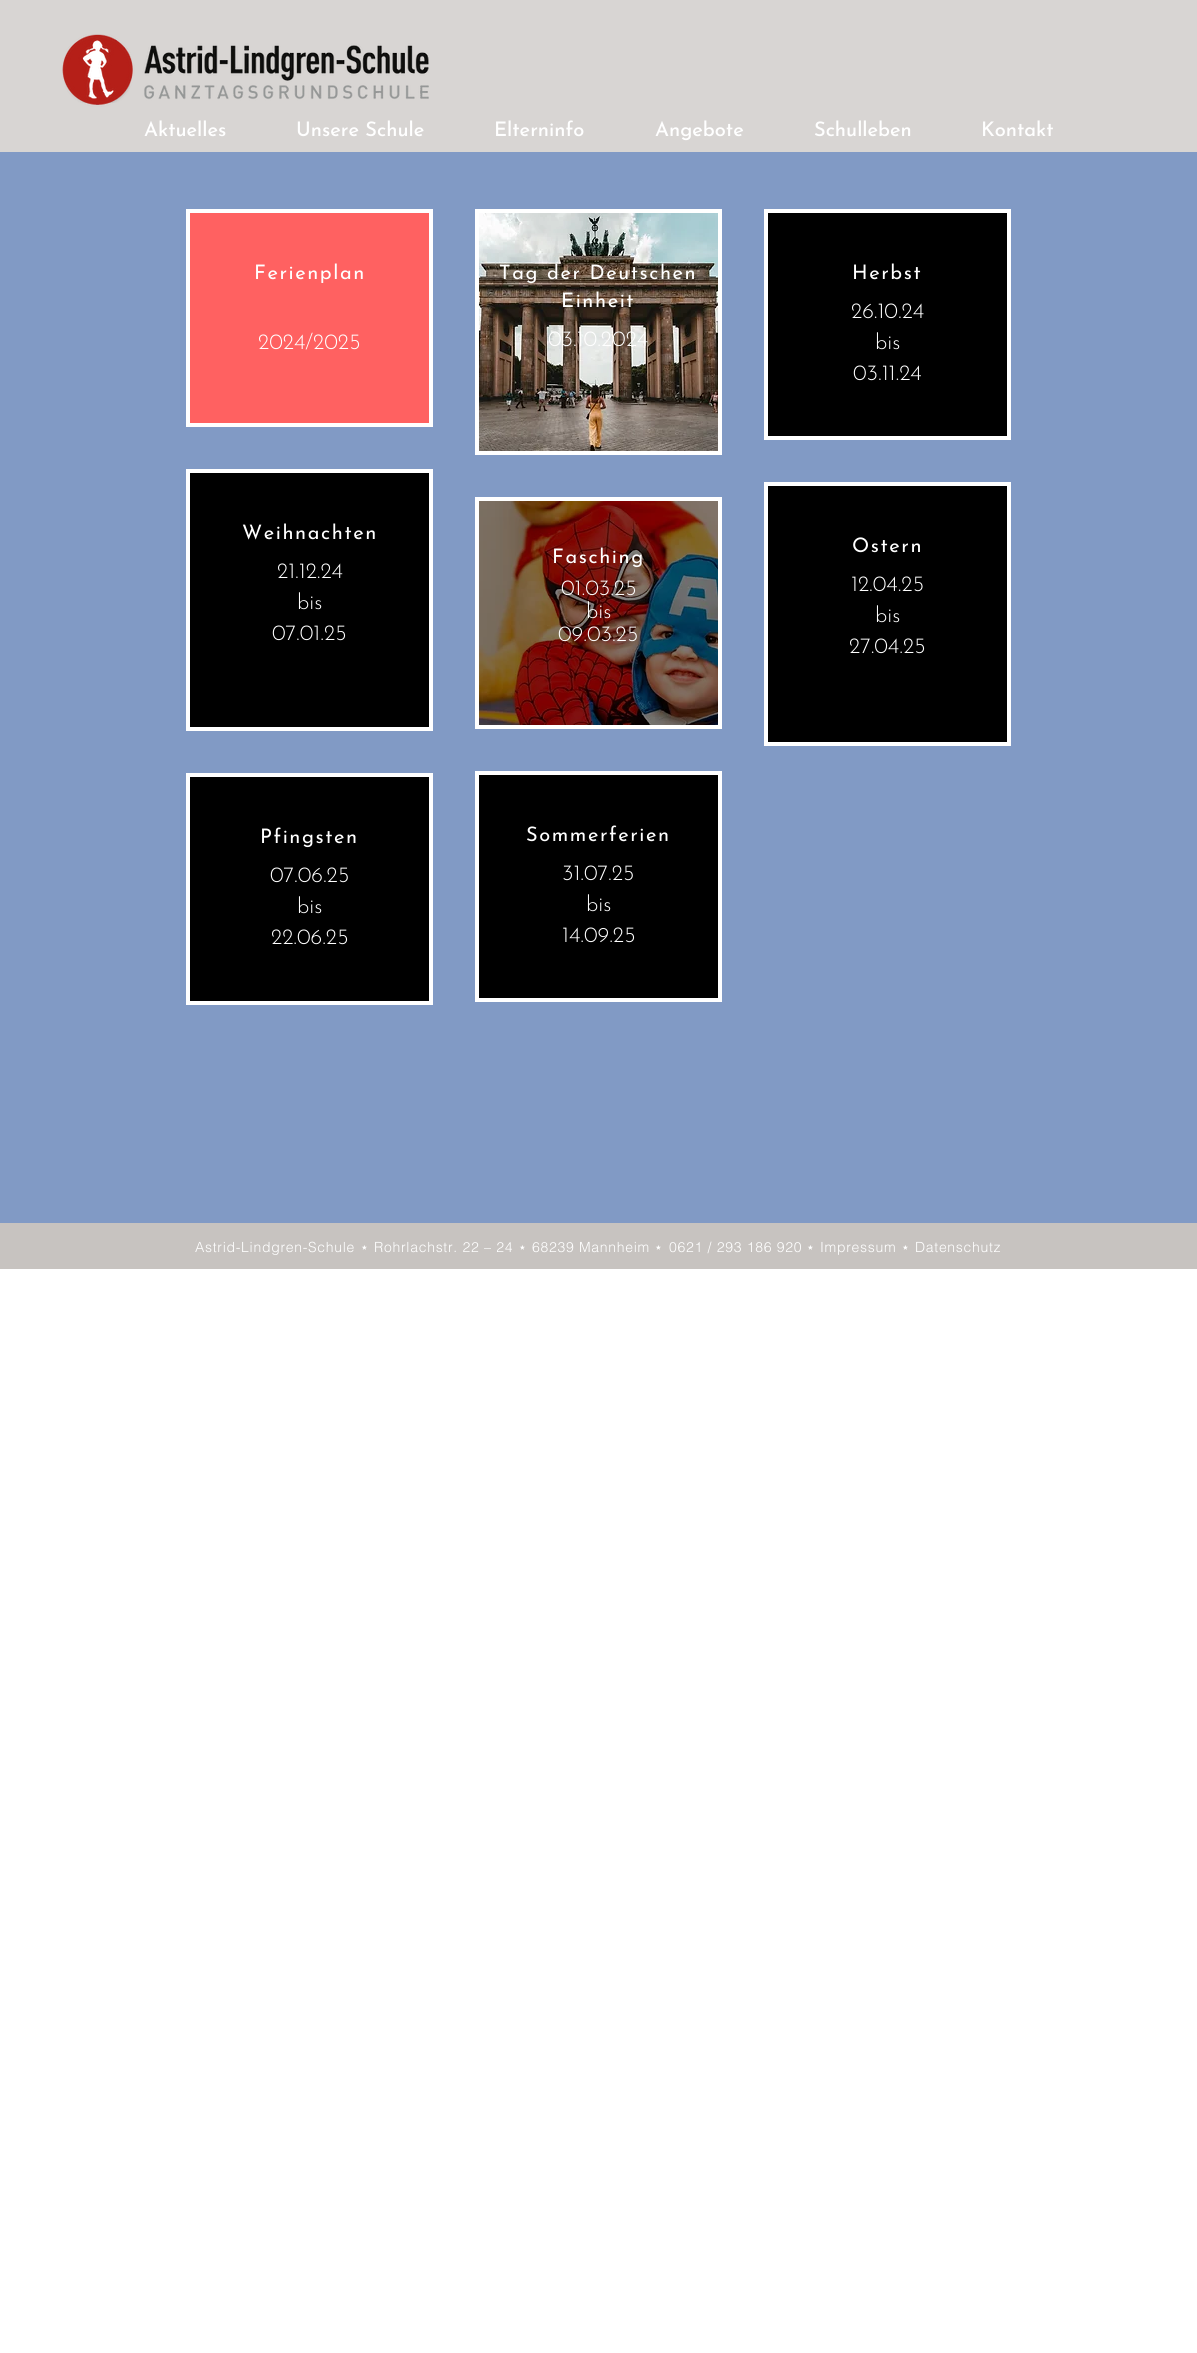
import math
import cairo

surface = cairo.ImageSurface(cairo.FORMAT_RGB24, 1197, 2353)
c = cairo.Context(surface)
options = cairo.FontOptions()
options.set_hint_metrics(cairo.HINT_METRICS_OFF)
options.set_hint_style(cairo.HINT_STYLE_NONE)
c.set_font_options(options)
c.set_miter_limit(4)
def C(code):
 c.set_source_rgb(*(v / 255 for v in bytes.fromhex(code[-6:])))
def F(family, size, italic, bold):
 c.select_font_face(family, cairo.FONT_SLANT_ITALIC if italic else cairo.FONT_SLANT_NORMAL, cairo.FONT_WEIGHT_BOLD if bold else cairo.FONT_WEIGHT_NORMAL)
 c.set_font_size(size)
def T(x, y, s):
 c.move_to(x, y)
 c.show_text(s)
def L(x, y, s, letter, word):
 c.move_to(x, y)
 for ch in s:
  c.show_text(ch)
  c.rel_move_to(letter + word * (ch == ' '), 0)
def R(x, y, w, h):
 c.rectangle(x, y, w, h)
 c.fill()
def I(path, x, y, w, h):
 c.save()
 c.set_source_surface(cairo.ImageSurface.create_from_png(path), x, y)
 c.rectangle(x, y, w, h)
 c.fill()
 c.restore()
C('ffffff')
c.paint()
C('d8d5d3')
R(0,0,1197,152)
I('2.png',64,38,66,65)
I('1.png',62,34,367,73)
F('Josefin Sans Medium',20,0,0)
C('ffffff')
T(144,136,'Aktuelles')
T(296,136,'Unsere Schule')
T(494,136,'Elterninfo')
T(655,136,'Angebote')
T(814,136,'Schulleben')
T(981,136,'Kontakt')
C('819ac5')
R(0,152,1197,1071)
c.rectangle(188,211,243,214)
C('ffffff')
c.set_line_width(4)
c.stroke()
C('ff6161')
R(190,213,239,210)
F('Josefin Sans',20,0,0)
C('ffffff')
L(254,279,'Ferienplan',1.6,0)
F('Josefin Sans Thin',22,0,0)
T(258,349,'2024/2025')
c.rectangle(188,471,243,258)
c.stroke()
C('000000')
R(190,473,239,254)
F('Josefin Sans',20,0,0)
C('ffffff')
L(242,539,'Weihnachten',1.6,0)
F('Josefin Sans Thin',22,0,0)
T(277,578,'21.12.24')
T(297,609,'bis')
T(272,640,'07.01.25')
c.rectangle(188,775,243,228)
c.stroke()
C('000000')
R(190,777,239,224)
F('Josefin Sans',20,0,0)
C('ffffff')
L(260,843,'Pfingsten',1.6,0)
F('Josefin Sans Thin',22,0,0)
T(270,882,'07.06.25')
T(297,913,'bis')
T(271,944,'22.06.25')
c.rectangle(477,211,243,242)
c.stroke()
I('3.png',479,213,239,238)
F('Josefin Sans',20,0,0)
L(499,279,'Tag der Deutschen',1.6,0)
L(561,307,'Einheit',1.6,0)
F('Josefin Sans Thin',22,0,0)
T(548,346,'03.10.2024')
c.rectangle(477,499,243,228)
c.stroke()
C('000000')
R(479,501,239,224)
I('4.png',479,501,239,224)
F('Josefin Sans',20,0,0)
C('ffffff')
L(552,563,'Fasching',1.6,0)
F('Josefin Sans Thin',22,0,0)
T(561,595,'01.03.25')
T(586,618,'bis')
T(558,641,'09.03.25')
c.rectangle(477,773,243,227)
c.stroke()
C('000000')
R(479,775,239,223)
F('Josefin Sans',20,0,0)
C('ffffff')
L(526,841,'Sommerferien',1.6,0)
F('Josefin Sans Thin',22,0,0)
T(562,880,'31.07.25')
T(586,911,'bis')
T(562,942,'14.09.25')
c.rectangle(766,211,243,227)
c.stroke()
C('000000')
R(768,213,239,223)
F('Josefin Sans',20,0,0)
C('ffffff')
L(852,279,'Herbst',1.6,0)
F('Josefin Sans Thin',22,0,0)
T(851,318,'26.10.24')
T(875,349,'bis')
T(853,380,'03.11.24')
c.rectangle(766,484,243,260)
c.stroke()
C('000000')
R(768,486,239,256)
F('Josefin Sans',20,0,0)
C('ffffff')
L(852,552,'Ostern',1.6,0)
F('Josefin Sans Thin',22,0,0)
T(851,591,'12.04.25')
T(875,622,'bis')
T(849,653,'27.04.25')
C('c7c3c0')
R(0,1223,1197,46)
F('helvetica Light',14,0,0)
C('ffffff')
L(195,1252,'Astrid-Lindgren-Schule',.7,0)
F('DejaVu Sans',14,0,0)
L(360,1252,'⋆',.7,0)
F('helvetica Light',14,0,0)
L(374,1252,'Rohrlachstr. 22 – 24',.7,0)
F('DejaVu Sans',14,0,0)
L(518,1252,'⋆',.7,0)
F('helvetica Light',14,0,0)
L(532,1252,'68239 Mannheim',.7,0)
F('DejaVu Sans',14,0,0)
L(654,1252,'⋆',.7,0)
F('helvetica Light',14,0,0)
L(669,1252,'0621 / 293 186 920',.7,0)
F('DejaVu Sans',14,0,0)
L(806,1252,'⋆',.7,0)
F('helvetica Light',14,0,0)
L(820,1252,'Impressum',.7,0)
F('DejaVu Sans',14,0,0)
L(901,1252,'⋆',.7,0)
F('helvetica Light',14,0,0)
L(915,1252,'Datenschutz',.7,0)
surface.write_to_png('o.png')
